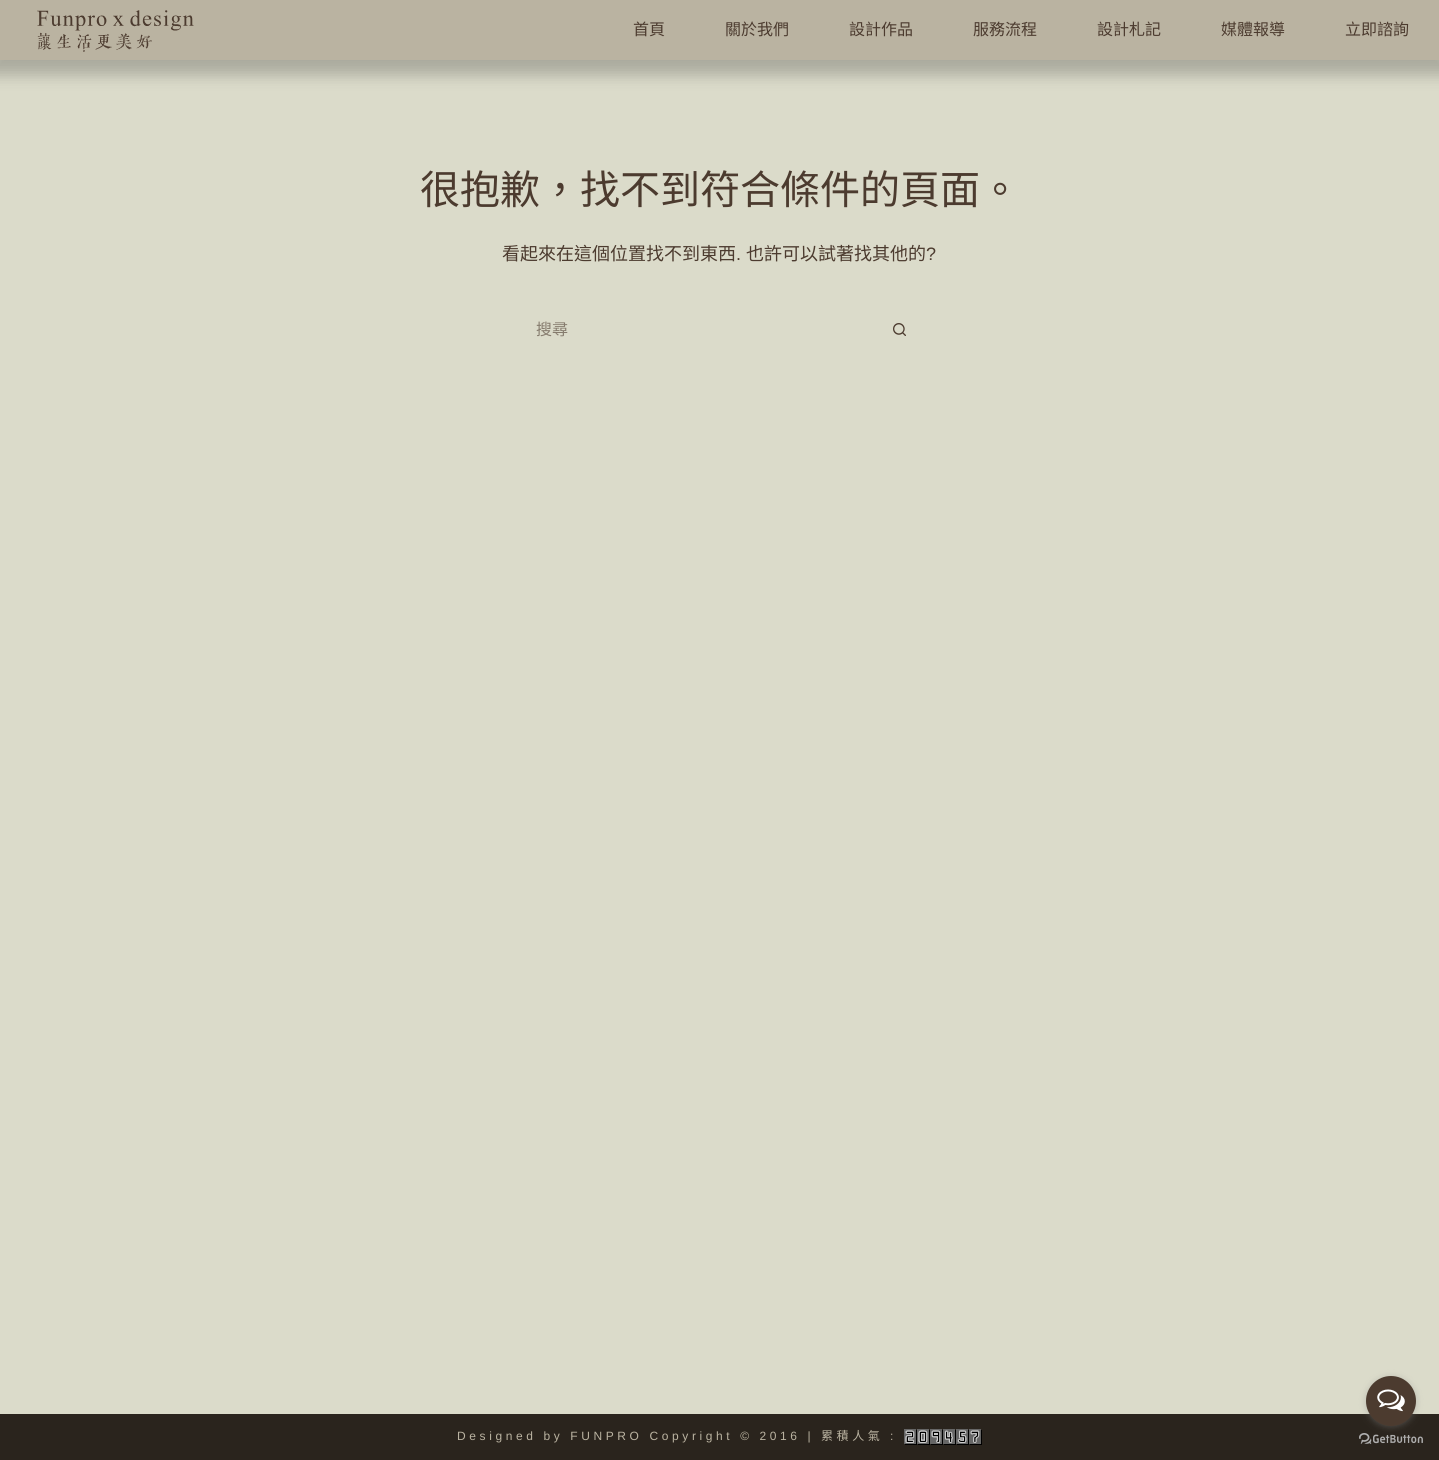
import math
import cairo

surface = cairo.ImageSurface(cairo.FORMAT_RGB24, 1439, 1460)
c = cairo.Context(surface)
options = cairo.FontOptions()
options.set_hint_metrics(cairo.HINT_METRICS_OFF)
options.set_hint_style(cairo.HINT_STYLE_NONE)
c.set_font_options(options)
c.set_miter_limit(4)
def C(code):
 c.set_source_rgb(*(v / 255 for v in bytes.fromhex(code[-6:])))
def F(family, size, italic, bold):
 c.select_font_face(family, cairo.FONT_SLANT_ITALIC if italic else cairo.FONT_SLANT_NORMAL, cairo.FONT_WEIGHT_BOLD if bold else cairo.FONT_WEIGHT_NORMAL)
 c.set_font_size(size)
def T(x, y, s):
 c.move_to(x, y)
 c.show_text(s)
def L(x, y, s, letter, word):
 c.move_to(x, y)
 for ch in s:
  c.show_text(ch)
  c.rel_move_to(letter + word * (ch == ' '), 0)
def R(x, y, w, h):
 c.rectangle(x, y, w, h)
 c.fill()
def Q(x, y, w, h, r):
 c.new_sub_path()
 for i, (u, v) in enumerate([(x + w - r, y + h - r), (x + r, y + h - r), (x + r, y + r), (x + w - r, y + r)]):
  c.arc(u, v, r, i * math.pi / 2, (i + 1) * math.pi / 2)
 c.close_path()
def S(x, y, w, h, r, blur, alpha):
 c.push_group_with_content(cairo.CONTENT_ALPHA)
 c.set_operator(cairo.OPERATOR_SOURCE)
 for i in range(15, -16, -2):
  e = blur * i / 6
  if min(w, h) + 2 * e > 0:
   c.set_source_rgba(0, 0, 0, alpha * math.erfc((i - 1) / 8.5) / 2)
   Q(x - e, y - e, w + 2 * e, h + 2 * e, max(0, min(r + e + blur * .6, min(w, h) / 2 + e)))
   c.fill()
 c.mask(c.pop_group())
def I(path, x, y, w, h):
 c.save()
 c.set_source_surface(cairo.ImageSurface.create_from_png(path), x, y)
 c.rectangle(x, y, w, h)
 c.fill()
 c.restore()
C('dbdbca')
c.paint()
C('212121')
S(-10,-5,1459,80,0,7.5,.26)
C('bab3a1')
R(0,0,1439,60)
I('1.png',37,10,157,42)
F('Noto Sans CJK TC',16,0,0)
C('4c3b2f')
T(633,35,'首頁')
T(725,35,'關於我們')
T(849,35,'設計作品')
T(973,35,'服務流程')
T(1097,35,'設計札記')
T(1221,35,'媒體報導')
T(1345,35,'立即諮詢')
F('Noto Sans CJK TC',40,0,0)
T(420,204,'很抱歉，找不到符合條件的頁面。')
F('Noto Sans CJK TC',18,0,0)
T(502,260,'看起來在這個位置找不到東西')
F('Liberation Sans',18,0,0)
T(736,260,'.')
F('Noto Sans CJK TC',18,0,0)
T(746,260,'也許可以試著找其他的')
F('Liberation Sans',18,0,0)
T(926,260,'?')
F('Noto Sans CJK TC',16,0,0)
C('857b6d')
T(536,335,'搜尋')
I('2.png',893,323,13,13)
C('2a241d')
R(0,1414,1439,46)
F('Liberation Sans',12,0,0)
C('bab3a1')
L(457,1440,'Designed by FUNPRO Copyright © 2016 |',3.6,0)
F('Noto Sans CJK TC',12,0,0)
L(821,1440,'累積人氣',3.6,0)
F('Liberation Sans',12,0,0)
L(890,1440,':',3.6,0)
I('3.png',904,1429,78,16)
I('5.png',1359,1433,64,11)
C('888888')
S(1366,1377,50,50,25,3.5,.4)
C('4c3b2f')
c.arc(1391,1401,25,0,2 * math.pi)
c.fill()
I('4.png',1377,1389,28,23)
surface.write_to_png('o.png')
